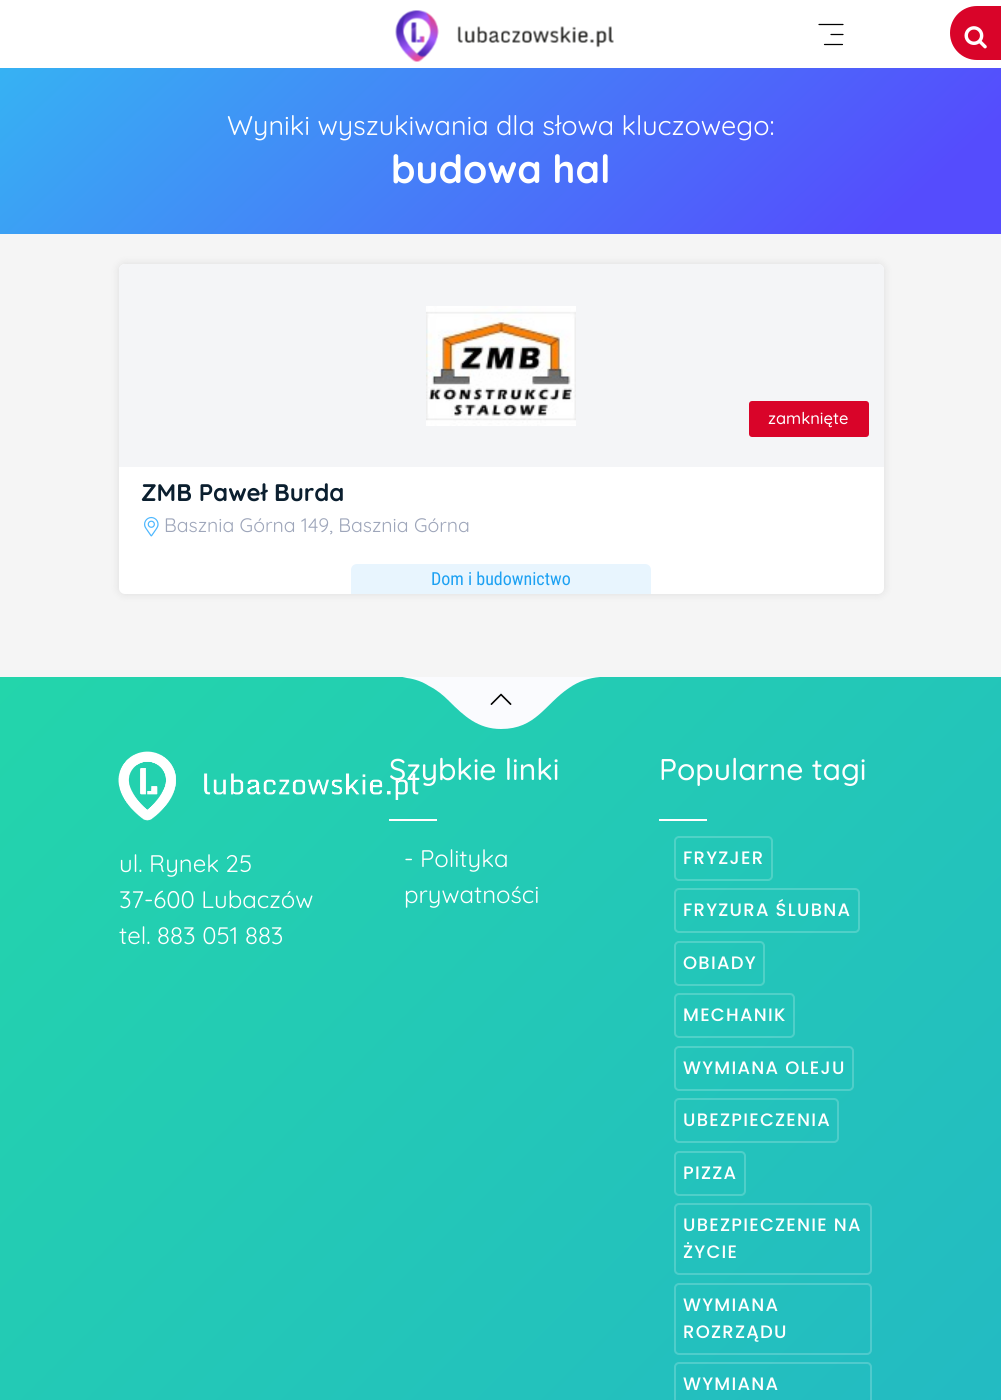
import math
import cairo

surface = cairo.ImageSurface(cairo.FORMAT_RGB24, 1001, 1400)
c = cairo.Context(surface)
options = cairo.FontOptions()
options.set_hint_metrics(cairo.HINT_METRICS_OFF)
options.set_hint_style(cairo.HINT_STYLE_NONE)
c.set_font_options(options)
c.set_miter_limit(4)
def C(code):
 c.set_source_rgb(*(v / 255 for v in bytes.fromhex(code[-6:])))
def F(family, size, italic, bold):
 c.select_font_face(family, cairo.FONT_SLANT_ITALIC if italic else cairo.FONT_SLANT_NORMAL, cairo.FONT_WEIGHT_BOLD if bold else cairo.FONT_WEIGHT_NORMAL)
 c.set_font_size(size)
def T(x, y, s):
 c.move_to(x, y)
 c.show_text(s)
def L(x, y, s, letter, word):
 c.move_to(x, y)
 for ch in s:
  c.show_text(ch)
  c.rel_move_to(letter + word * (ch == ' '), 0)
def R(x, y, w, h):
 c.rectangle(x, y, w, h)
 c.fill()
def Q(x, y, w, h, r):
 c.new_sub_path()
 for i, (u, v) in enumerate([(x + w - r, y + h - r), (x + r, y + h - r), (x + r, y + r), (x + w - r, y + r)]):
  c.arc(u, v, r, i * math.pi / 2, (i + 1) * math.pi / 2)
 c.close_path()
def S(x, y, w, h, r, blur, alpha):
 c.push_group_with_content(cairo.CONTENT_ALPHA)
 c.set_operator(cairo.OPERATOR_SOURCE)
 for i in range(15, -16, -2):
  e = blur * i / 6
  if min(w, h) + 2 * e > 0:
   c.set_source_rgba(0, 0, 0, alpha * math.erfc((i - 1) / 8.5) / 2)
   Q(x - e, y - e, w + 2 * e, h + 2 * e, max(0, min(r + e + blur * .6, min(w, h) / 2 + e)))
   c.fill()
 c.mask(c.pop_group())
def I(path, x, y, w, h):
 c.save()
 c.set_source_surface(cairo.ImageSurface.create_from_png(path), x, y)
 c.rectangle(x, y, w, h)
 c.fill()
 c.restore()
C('f5f5f5')
c.paint()
C('ffffff')
R(0,0,1001,68)
I('1.png',395,10,219,52)
c.new_path()
c.move_to(843,24.5)
c.line_to(819,24.5)
c.move_to(843,34.5)
c.line_to(831,34.5)
c.move_to(842.5,44.5)
c.line_to(824.5,44.5)
C('000000')
c.set_line_width(1.2)
c.set_line_cap(cairo.LINE_CAP_ROUND)
c.stroke()
C('d90429')
c.new_path()
c.move_to(977,6)
c.line_to(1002,6)
c.line_to(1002,60)
c.line_to(977,60)
c.curve_to(962,60,950,48,950,33)
c.curve_to(950,18,962,6,977,6)
c.close_path()
c.fill()
I('2.png',964,26,23,23)
gradient = cairo.LinearGradient(210,-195,792,429)
gradient.add_color_stop_rgba(0,0.204,0.725,0.949,1)
gradient.add_color_stop_rgba(.9,0.333,0.298,0.992,1)
c.set_source(gradient)
R(0,68,1001,166)
F('Quicksand',27,0,0)
C('ffffff')
T(227,135,'Wyniki wyszukiwania dla słowa kluczowego:')
F('Quicksand',39,0,1)
T(391,183,'budowa hal')
C('000000')
S(119,264,765,330,6,4.5,.1)
C('ffffff')
Q(119,264,765,330,6)
c.fill()
C('f4f5f7')
c.new_path()
c.move_to(125,264)
c.line_to(878,264)
c.curve_to(881.5,264,884,266.5,884,270)
c.line_to(884,467)
c.line_to(119,467)
c.line_to(119,270)
c.curve_to(119,266.5,121.5,264,125,264)
c.close_path()
c.fill()
I('3.png',426,306,150,120)
C('d90429')
Q(749,401,120,36,3)
c.fill()
F('Quicksand Medium',16.5,0,0)
C('ffffff')
T(768,424,'zamknięte')
F('Quicksand',24,0,1)
C('0b1f2f')
T(141,501,'ZMB Paweł Burda')
I('4.png',144,516,15,21)
F('Quicksand',19.5,0,0)
C('9ea6ba')
T(164,532,'Basznia Górna 149, Basznia Górna')
C('e8f5fe')
c.new_path()
c.move_to(357,564)
c.line_to(645,564)
c.curve_to(648.5,564,651,566.5,651,570)
c.line_to(651,594)
c.line_to(351,594)
c.line_to(351,570)
c.curve_to(351,566.5,353.5,564,357,564)
c.close_path()
c.fill()
F('Roboto Condensed',18,0,0)
C('1da1f2')
T(431,585,'Dom i budownictwo')
gradient = cairo.LinearGradient(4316,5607,-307,984)
gradient.add_color_stop_rgba(0,0.933,0.467,0.322,1)
gradient.add_color_stop_rgba(.33,0.906,0.235,0.494,1)
gradient.add_color_stop_rgba(.67,0.137,0.651,0.835,1)
gradient.add_color_stop_rgba(1,0.137,0.835,0.671,1)
c.set_source(gradient)
R(0,677,1001,723)
c.save()
c.rectangle(398,677,207,52)
c.clip()
C('fafbfe')
c.new_path()
c.move_to(600,677)
c.line_to(604,676)
c.line_to(501,676)
c.line_to(501,699)
c.line_to(501,676)
c.line_to(398,676)
c.line_to(407,678)
c.curve_to(415,679,423,682,429,686)
c.curve_to(437,690,443,695,449,701)
c.curve_to(464,716,478,729,501,729)
c.line_to(501,706)
c.line_to(501,729)
c.curve_to(536,729,545,704,569,688)
c.curve_to(579,681,589,678,600,677)
c.close_path()
c.fill()
c.restore()
I('5.png',490,693,22,12)
I('6.png',118,751,301,70)
F('Quicksand',24,0,0)
C('ffffff')
T(119,872,'ul. Rynek 25')
T(119,908,'37-600 Lubaczów')
T(119,944,'tel. 883 051 883')
F('Quicksand Medium',30,0,0)
T(389,780,'Szybkie linki')
R(389,819,48,2)
F('Quicksand',24,0,0)
T(404,867,'- Polityka')
T(404,903,'prywatności')
F('Quicksand Medium',30,0,0)
T(659,780,'Popularne tagi')
R(659,819,48,2)
Q(675,837,97,43,4)
C('4fd2c6')
c.set_line_width(2)
c.set_line_cap(cairo.LINE_CAP_BUTT)
c.stroke()
F('Poppins Medium',18,0,0)
C('ffffff')
L(683,864,'FRYZJER',1.25,0)
Q(675,889,184,43,4)
c.set_source_rgba(1,1,1,0.2)
c.stroke()
C('ffffff')
L(683,916,'FRYZURA ŚLUBNA',1.25,0)
Q(675,942,89,43,4)
C('4fd1c7')
c.stroke()
C('ffffff')
L(683,969,'OBIADY',1.25,0)
Q(675,994,119,43,4)
c.set_source_rgba(1,1,1,0.2)
c.stroke()
C('ffffff')
L(683,1021,'MECHANIK',1.25,0)
Q(675,1047,178,43,4)
c.set_source_rgba(1,1,1,0.2)
c.stroke()
C('ffffff')
L(683,1074,'WYMIANA OLEJU',1.25,0)
Q(675,1099,163,43,4)
c.set_source_rgba(1,1,1,0.2)
c.stroke()
C('ffffff')
L(683,1126,'UBEZPIECZENIA',1.25,0)
Q(675,1152,70,43,4)
C('4fcfc9')
c.stroke()
C('ffffff')
L(683,1179,'PIZZA',1.25,0)
Q(675,1204,196,70,4)
c.set_source_rgba(1,1,1,0.2)
c.stroke()
C('ffffff')
L(683,1231,'UBEZPIECZENIE NA',1.25,0)
L(683,1258,'ŻYCIE',1.25,0)
Q(675,1284,196,70,4)
c.set_source_rgba(1,1,1,0.2)
c.stroke()
C('ffffff')
L(683,1311,'WYMIANA',1.25,0)
L(683,1338,'ROZRZĄDU',1.25,0)
Q(675,1363,196,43,4)
c.set_source_rgba(1,1,1,0.2)
c.stroke()
C('ffffff')
L(683,1390,'WYMIANA',1.25,0)
surface.write_to_png('o.png')
